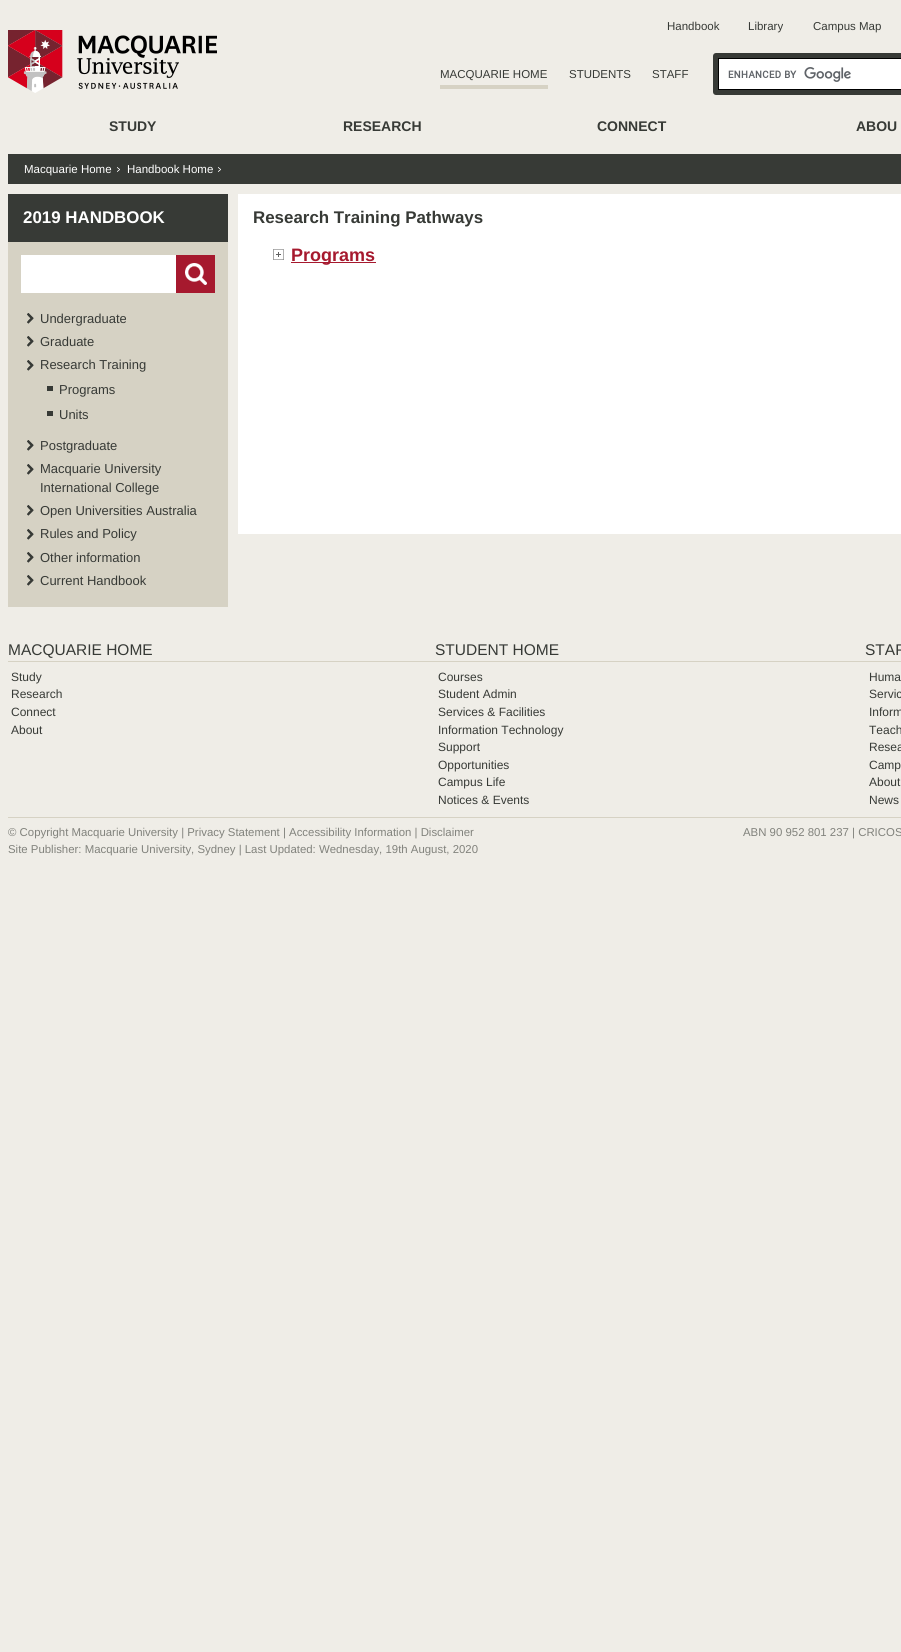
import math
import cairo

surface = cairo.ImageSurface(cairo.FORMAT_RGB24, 901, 1652)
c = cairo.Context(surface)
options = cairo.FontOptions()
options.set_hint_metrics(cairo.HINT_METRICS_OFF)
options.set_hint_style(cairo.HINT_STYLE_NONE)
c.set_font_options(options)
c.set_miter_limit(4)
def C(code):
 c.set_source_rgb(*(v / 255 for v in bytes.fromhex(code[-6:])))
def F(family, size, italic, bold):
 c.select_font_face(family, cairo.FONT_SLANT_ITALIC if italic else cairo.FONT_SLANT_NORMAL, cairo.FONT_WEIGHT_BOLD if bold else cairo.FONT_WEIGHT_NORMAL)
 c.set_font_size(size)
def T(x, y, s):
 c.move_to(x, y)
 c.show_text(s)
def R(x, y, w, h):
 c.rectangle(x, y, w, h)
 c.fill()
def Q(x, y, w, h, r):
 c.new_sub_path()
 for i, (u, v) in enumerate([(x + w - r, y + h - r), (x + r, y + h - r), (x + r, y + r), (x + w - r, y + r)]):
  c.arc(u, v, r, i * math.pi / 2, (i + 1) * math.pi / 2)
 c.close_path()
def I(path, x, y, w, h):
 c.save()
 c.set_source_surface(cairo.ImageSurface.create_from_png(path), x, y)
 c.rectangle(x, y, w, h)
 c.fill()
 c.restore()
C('efede7')
c.paint()
I('1.png',8,30,209,63)
F('Liberation Sans',11.5,0,0)
C('373a36')
T(667,30,'Handbook')
T(748,30,'Library')
T(813,30,'Campus Map')
T(440,78,'MACQUARIE HOME')
C('d6d2c4')
R(440,85,108,4)
C('373a36')
T(569,78,'STUDENTS')
T(652,78,'STAFF')
Q(713,53,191,42,3)
c.fill()
C('ffffff')
R(719,59,182,30)
I('2.png',728,67,123,15)
c.rectangle(718.5,58.5,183,31)
C('000000')
c.set_line_width(1)
c.stroke()
F('Liberation Sans',14,0,1)
C('373a36')
T(109,131,'STUDY')
T(343,131,'RESEARCH')
T(597,131,'CONNECT')
T(856,131,'ABOU')
R(8,154,893,30)
F('Liberation Sans',11.5,0,0)
C('ffffff')
T(24,173,'Macquarie Home')
I('3.png',117,167,3,5)
T(127,173,'Handbook Home')
I('3.png',218,167,3,5)
C('d6d2c4')
R(8,242,220,365)
C('373a36')
R(8,194,220,48)
F('Liberation Sans',16.9,0,1)
C('ffffff')
T(23,223,'2019 HANDBOOK')
R(21,255,155,38)
C('a6192e')
R(176,255,39,38)
I('4.png',185,263,22,22)
I('5.png',27,313,7,11)
F('Liberation Sans',13,0,0)
C('373a36')
T(40,323,'Undergraduate')
I('5.png',27,336,7,11)
T(40,346,'Graduate')
I('5.png',27,360,7,11)
T(40,369,'Research Training')
R(47,386,6,5)
T(59,394,'Programs')
R(47,411,6,5)
T(59,419,'Units')
I('5.png',27,440,7,11)
T(40,450,'Postgraduate')
I('5.png',27,464,7,11)
T(40,473,'Macquarie University')
T(40,492,'International College')
I('5.png',27,505,7,11)
T(40,515,'Open Universities Australia')
I('5.png',27,529,7,11)
T(40,538,'Rules and Policy')
I('5.png',27,552,7,11)
T(40,562,'Other information')
I('5.png',27,575,7,11)
T(40,585,'Current Handbook')
C('ffffff')
R(238,194,663,340)
F('Liberation Sans',16.9,0,1)
C('373a36')
T(253,223,'Research Training Pathways')
I('6.png',273,249,11,11)
C('a6192e')
R(291,262,85,1)
F('Liberation Sans',18,0,1)
T(291,261,'Programs')
C('d6d2c4')
R(8,817,893,1)
R(8,661,893,1)
F('Liberation Sans',15.5,0,0)
C('373a36')
T(8,655,'MACQUARIE HOME')
F('Liberation Sans',12,0,0)
T(11,681,'Study')
T(11,698,'Research')
T(11,716,'Connect')
T(11,734,'About')
F('Liberation Sans',15.5,0,0)
T(435,655,'STUDENT HOME')
F('Liberation Sans',12,0,0)
T(438,681,'Courses')
T(438,698,'Student Admin')
T(438,716,'Services & Facilities')
T(438,734,'Information Technology')
T(438,751,'Support')
T(438,769,'Opportunities')
T(438,786,'Campus Life')
T(438,804,'Notices & Events')
F('Liberation Sans',15.5,0,0)
T(865,655,'STAF')
F('Liberation Sans',12,0,0)
T(869,681,'Huma')
T(869,698,'Servic')
T(869,716,'Inform')
T(869,734,'Teach')
T(869,751,'Resea')
T(869,769,'Camp')
T(869,786,'About')
T(869,804,'News')
F('Liberation Sans',11.4,0,0)
C('81827c')
T(8,836,'© Copyright Macquarie University | Privacy Statement | Accessibility Information | Disclaimer')
T(8,853,'Site Publisher: Macquarie University, Sydney | Last Updated: Wednesday, 19th August, 2020')
T(743,836,'ABN 90 952 801 237 | CRICOS')
surface.write_to_png('o.png')
